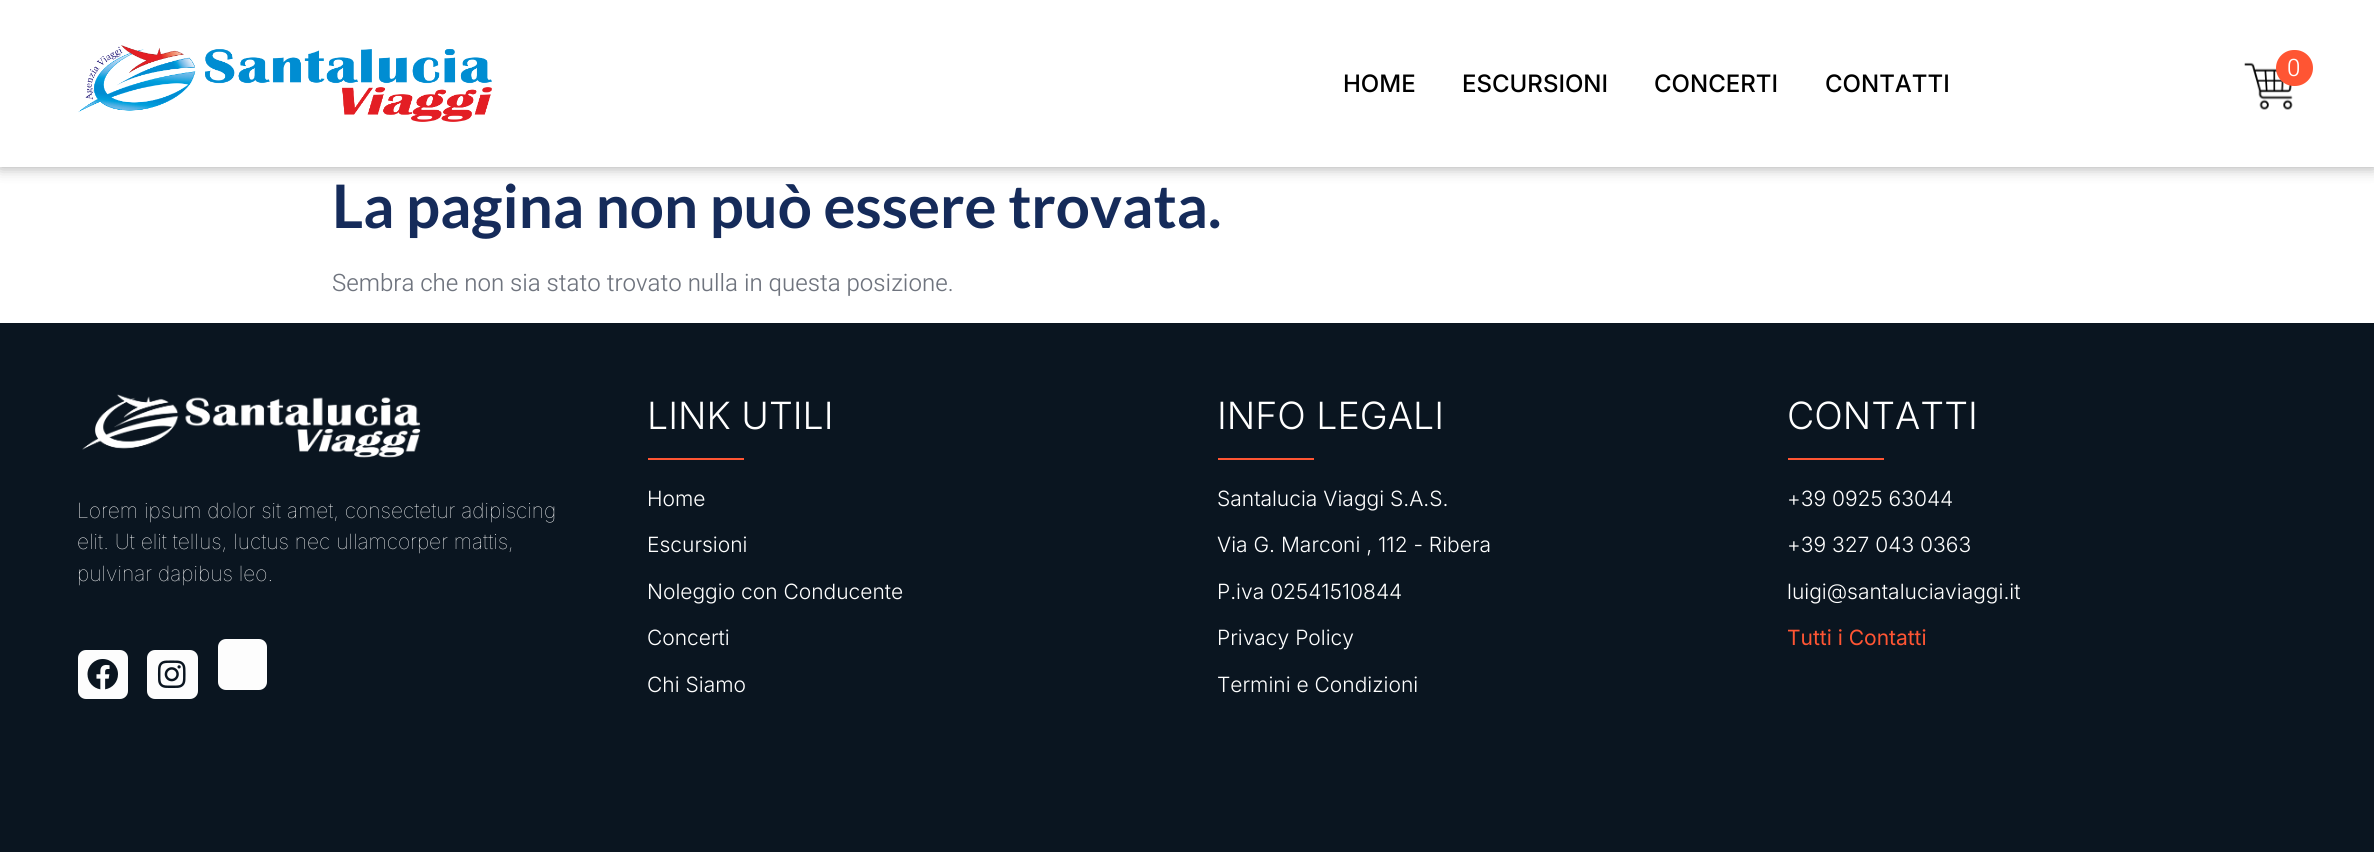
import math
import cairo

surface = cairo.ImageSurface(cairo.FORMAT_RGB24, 2374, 852)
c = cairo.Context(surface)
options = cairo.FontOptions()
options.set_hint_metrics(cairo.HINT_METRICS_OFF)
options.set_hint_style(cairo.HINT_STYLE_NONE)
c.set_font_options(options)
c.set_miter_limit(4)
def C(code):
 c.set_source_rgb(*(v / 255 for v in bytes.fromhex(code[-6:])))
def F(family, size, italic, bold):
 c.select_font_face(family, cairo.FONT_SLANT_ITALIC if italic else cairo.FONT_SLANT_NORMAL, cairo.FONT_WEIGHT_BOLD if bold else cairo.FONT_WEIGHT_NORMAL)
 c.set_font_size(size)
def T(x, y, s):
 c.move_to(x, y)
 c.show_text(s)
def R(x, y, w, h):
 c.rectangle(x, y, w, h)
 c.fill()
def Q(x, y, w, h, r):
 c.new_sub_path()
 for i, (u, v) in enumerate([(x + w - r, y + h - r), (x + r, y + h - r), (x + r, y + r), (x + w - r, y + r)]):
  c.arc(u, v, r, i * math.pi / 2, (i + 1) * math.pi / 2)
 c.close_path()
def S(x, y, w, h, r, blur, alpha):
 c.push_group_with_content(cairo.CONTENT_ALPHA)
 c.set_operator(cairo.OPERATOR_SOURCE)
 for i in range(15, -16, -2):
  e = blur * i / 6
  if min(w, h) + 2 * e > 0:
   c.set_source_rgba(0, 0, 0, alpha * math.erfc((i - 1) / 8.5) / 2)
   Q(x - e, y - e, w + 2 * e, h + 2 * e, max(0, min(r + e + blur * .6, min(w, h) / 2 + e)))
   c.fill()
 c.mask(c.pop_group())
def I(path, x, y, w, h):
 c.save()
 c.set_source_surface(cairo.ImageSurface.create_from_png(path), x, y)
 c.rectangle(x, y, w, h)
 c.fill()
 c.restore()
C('ffffff')
c.paint()
C('000000')
S(0,0,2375,167,0,7.5,.36)
C('ffffff')
R(0,0,2374,167)
I('1.png',78,45,414,77)
I('2.png',2244,62,49,48)
C('ff5533')
Q(2276,50,37,36,18)
c.fill()
F('Heebo Light',24,0,0)
C('ffffff')
T(2287,76,'0')
F('Inter Medium',24,0,0)
C('000000')
T(1343,92,'HOME')
T(1462,92,'ESCURSIONI')
T(1654,92,'CONCERTI')
T(1825,92,'CONTATTI')
F('Lato',60,0,1)
C('152b5a')
T(332,228,'La pagina non può essere trovata.')
F('Heebo Light',24,0,0)
C('6f747e')
T(332,291,'Sembra che non sia stato trovato nulla in questa posizione.')
C('0a1520')
R(0,323,2374,529)
I('3.png',82,394,339,64)
F('Inter Thin',21,0,0)
C('ffffff')
T(77,518,'Lorem ipsum dolor sit amet, consectetur adipiscing')
T(77,549,'elit. Ut elit tellus, luctus nec ullamcorper mattis,')
T(77,581,'pulvinar dapibus leo.')
C('fdfdfd')
Q(78,650,50,49,8)
c.fill()
I('4.png',87,659,31,31)
Q(147,650,51,49,8)
c.fill()
I('5.png',157,660,29,28)
Q(218,639,49,51,8)
c.fill()
F('Inter Light',37.5,0,0)
C('ffffff')
T(647,429,'LINK UTILI')
C('ff5533')
R(648,458,96,2)
F('Inter Light',21,0,0)
C('ffffff')
T(647,506,'Home')
T(647,552,'Escursioni')
T(647,599,'Noleggio con Conducente')
T(647,645,'Concerti')
T(647,692,'Chi Siamo')
F('Inter Light',37.5,0,0)
T(1217,429,'INFO LEGALI')
C('ff5533')
R(1218,458,96,2)
F('Inter Light',21,0,0)
C('ffffff')
T(1217,506,'Santalucia Viaggi S.A.S.')
T(1217,552,'Via G. Marconi , 112 - Ribera')
T(1217,599,'P.iva 02541510844')
T(1217,645,'Privacy Policy')
T(1217,692,'Termini e Condizioni')
F('Inter Light',37.5,0,0)
T(1787,429,'CONTATTI')
C('ff5533')
R(1788,458,96,2)
F('Inter Light',21,0,0)
C('ffffff')
T(1787,506,'+39 0925 63044')
T(1787,552,'+39 327 043 0363')
T(1787,599,'luigi@santaluciaviaggi.it')
F('Inter',21,0,0)
C('ff5533')
T(1787,645,'Tutti i Contatti')
surface.write_to_png('o.png')
